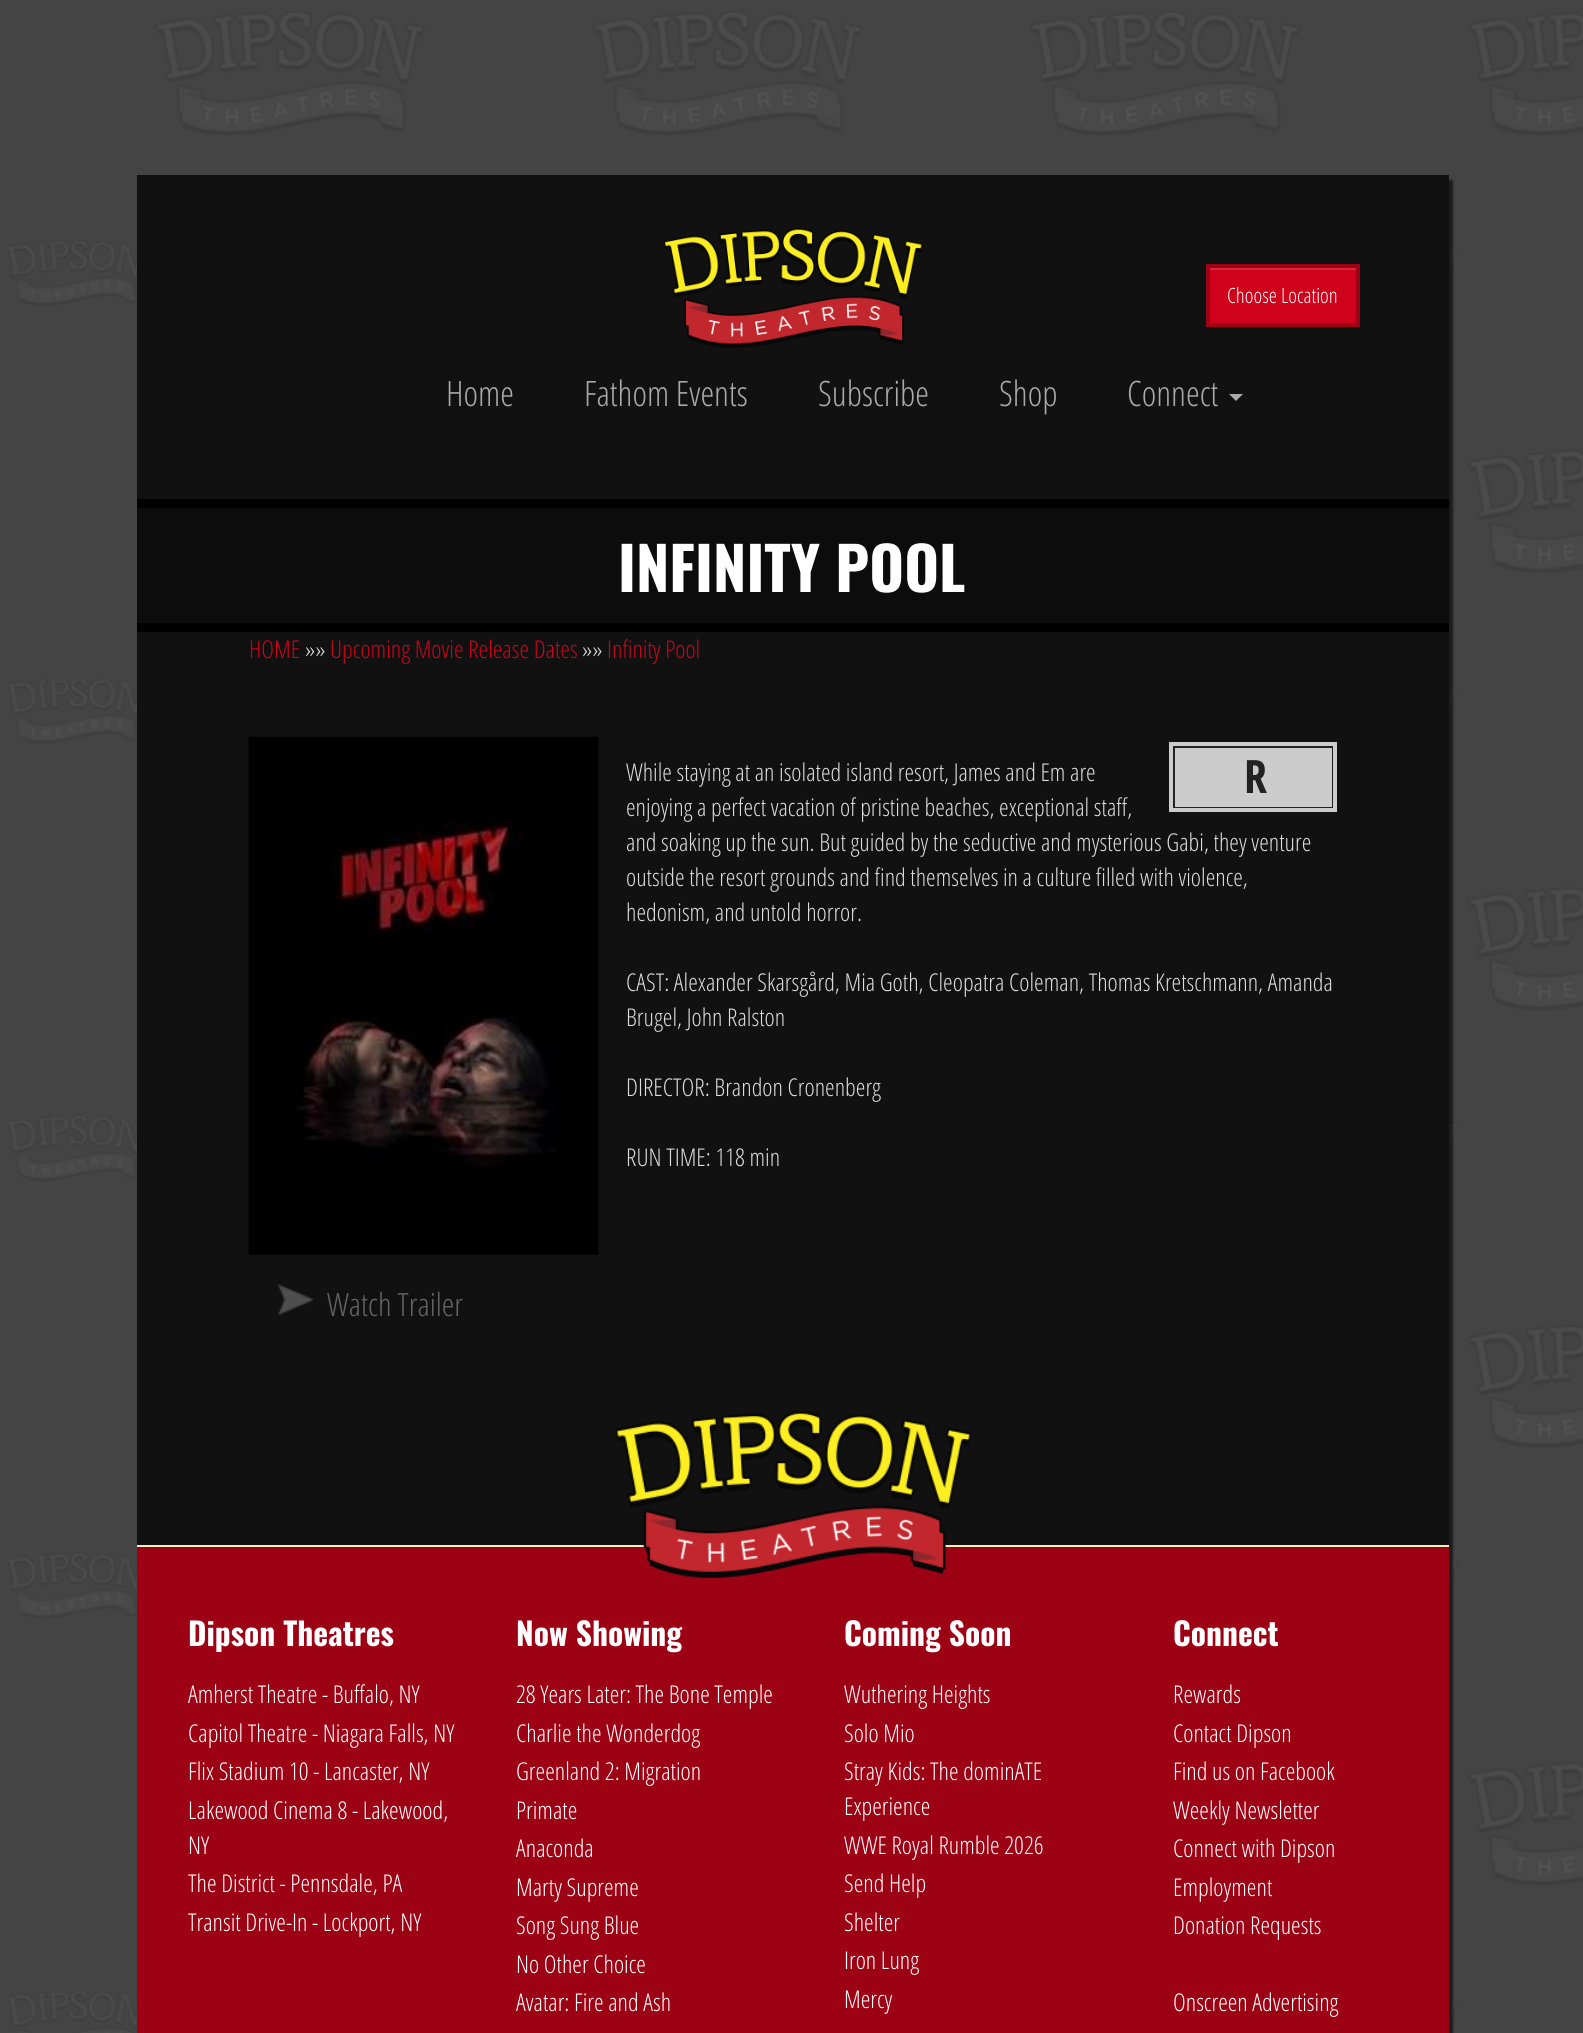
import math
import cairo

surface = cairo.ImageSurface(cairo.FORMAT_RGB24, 1583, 2033)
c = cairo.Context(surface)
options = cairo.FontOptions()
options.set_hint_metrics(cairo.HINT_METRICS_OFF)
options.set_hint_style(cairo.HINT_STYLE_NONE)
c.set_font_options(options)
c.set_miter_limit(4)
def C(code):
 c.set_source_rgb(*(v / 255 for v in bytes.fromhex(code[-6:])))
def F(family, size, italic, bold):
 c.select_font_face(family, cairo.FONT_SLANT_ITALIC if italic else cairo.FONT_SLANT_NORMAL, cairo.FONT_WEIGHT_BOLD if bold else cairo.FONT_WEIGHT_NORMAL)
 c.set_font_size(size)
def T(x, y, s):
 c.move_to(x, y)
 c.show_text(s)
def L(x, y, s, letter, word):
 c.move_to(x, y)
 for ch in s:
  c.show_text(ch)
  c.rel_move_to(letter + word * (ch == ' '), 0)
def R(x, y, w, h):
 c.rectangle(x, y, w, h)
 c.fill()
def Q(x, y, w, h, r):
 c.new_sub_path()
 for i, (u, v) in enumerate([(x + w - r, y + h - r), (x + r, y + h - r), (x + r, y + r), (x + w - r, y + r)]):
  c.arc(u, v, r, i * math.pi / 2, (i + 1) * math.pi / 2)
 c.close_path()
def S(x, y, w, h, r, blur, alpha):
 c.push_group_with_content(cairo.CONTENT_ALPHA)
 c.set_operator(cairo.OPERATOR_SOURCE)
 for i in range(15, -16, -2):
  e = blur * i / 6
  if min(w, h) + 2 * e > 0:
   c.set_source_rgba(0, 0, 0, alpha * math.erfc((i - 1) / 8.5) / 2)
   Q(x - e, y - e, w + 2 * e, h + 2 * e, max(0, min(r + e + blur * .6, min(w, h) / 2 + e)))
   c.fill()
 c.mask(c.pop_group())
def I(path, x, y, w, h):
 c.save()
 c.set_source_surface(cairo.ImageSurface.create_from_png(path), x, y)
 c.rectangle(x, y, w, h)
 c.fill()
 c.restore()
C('444444')
c.paint()
I('1.png',7,11,1576,2022)
C('000000')
S(140,180,1313,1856,0,1,.6)
C('111111')
R(137,175,1312,1370)
I('2.png',663,228,260,120)
C('d0021b')
R(1210,270,146,53)
C('d7283d')
R(1209,268,147,2)
c.rectangle(1208,266,150,59)
C('9d0214')
c.set_line_width(4)
c.stroke()
F('Open Sans Condensed Light',21,0,0)
C('ffffff')
T(1227,303,'Choose Location')
F('Open Sans Condensed Light',35,0,0)
C('aaaaaa')
T(446,406,'Home')
T(584,406,'Fathom Events')
T(818,406,'Subscribe')
T(999,406,'Shop')
T(1127,406,'Connect')
c.new_path()
c.move_to(1229,394)
c.line_to(1243,394)
c.line_to(1236,401)
c.close_path()
c.fill()
C('0c0c0c')
R(137,508,1312,115)
C('000000')
R(137,499,1312,9)
R(137,623,1312,9)
F('Oswald',59.5,0,1)
C('ffffff')
T(618,592,'INFINITY POOL')
F('Open Sans Condensed Light',24.5,0,0)
C('d0021b')
T(249,658,'HOME')
C('dddddd')
T(305,658,'»»')
C('d0021b')
T(330,658,'Upcoming Movie Release Dates')
C('dddddd')
T(582,658,'»»')
C('d0021b')
T(607,658,'Infinity Pool')
I('3.png',248,736,351,519)
C('dddddd')
T(626,781,'While staying at an isolated island resort, James and Em are')
C('cccccc')
c.rectangle(1174,747,159,61)
c.fill_preserve()
C('222222')
c.set_line_width(2)
c.stroke()
c.rectangle(1171,744,164,66)
C('cccccc')
c.set_line_width(4)
c.stroke()
F('Open Sans Condensed',46,0,1)
C('222222')
L(1244,793,'R',-3,0)
F('Open Sans Condensed Light',24.5,0,0)
C('dddddd')
T(626,816,'enjoying a perfect vacation of pristine beaches, exceptional staff,')
T(626,851,'and soaking up the sun. But guided by the seductive and mysterious Gabi, they venture')
T(626,886,'outside the resort grounds and find themselves in a culture filled with violence,')
T(626,921,'hedonism, and untold horror.')
T(626,991,'CAST: Alexander Skarsgård, Mia Goth, Cleopatra Coleman, Thomas Kretschmann, Amanda')
T(626,1026,'Brugel, John Ralston')
T(626,1096,'DIRECTOR: Brandon Cronenberg')
T(626,1166,'RUN TIME: 118 min')
I('4.png',278,1284,36,32)
F('Open Sans Condensed Light',32,0,0)
C('656565')
T(327,1316,'Watch Trailer')
C('9d0214')
R(137,1547,1312,486)
C('f1efc0')
R(137,1545,1312,2)
I('5.png',615,1411,357,167)
F('Oswald',31.5,0,1)
C('ffffff')
T(188,1646,'Dipson Theatres')
F('Open Sans Condensed Light',24.5,0,0)
T(188,1703,'Amherst Theatre - Buffalo, NY')
T(188,1742,'Capitol Theatre - Niagara Falls, NY')
T(188,1780,'Flix Stadium 10 - Lancaster, NY')
T(188,1819,'Lakewood Cinema 8 - Lakewood,')
T(188,1854,'NY')
T(188,1892,'The District - Pennsdale, PA')
T(188,1931,'Transit Drive-In - Lockport, NY')
F('Oswald',31.5,0,1)
T(516,1646,'Now Showing')
F('Open Sans Condensed Light',24.5,0,0)
T(516,1703,'28 Years Later: The Bone Temple')
T(516,1742,'Charlie the Wonderdog')
T(516,1780,'Greenland 2: Migration')
T(516,1819,'Primate')
T(516,1857,'Anaconda')
T(516,1896,'Marty Supreme')
T(516,1934,'Song Sung Blue')
T(516,1973,'No Other Choice')
T(516,2011,'Avatar: Fire and Ash')
F('Oswald',31.5,0,1)
T(844,1646,'Coming Soon')
F('Open Sans Condensed Light',24.5,0,0)
T(844,1703,'Wuthering Heights')
T(844,1742,'Solo Mio')
T(844,1780,'Stray Kids: The dominATE')
T(844,1815,'Experience')
T(844,1854,'WWE Royal Rumble 2026')
T(844,1892,'Send Help')
T(844,1931,'Shelter')
T(844,1969,'Iron Lung')
T(844,2008,'Mercy')
F('Oswald',31.5,0,1)
T(1173,1646,'Connect')
F('Open Sans Condensed Light',24.5,0,0)
T(1173,1703,'Rewards')
T(1173,1742,'Contact Dipson')
T(1173,1780,'Find us on Facebook')
T(1173,1819,'Weekly Newsletter')
T(1173,1857,'Connect with Dipson')
T(1173,1896,'Employment')
T(1173,1934,'Donation Requests')
T(1173,2011,'Onscreen Advertising')
surface.write_to_png('o.png')
